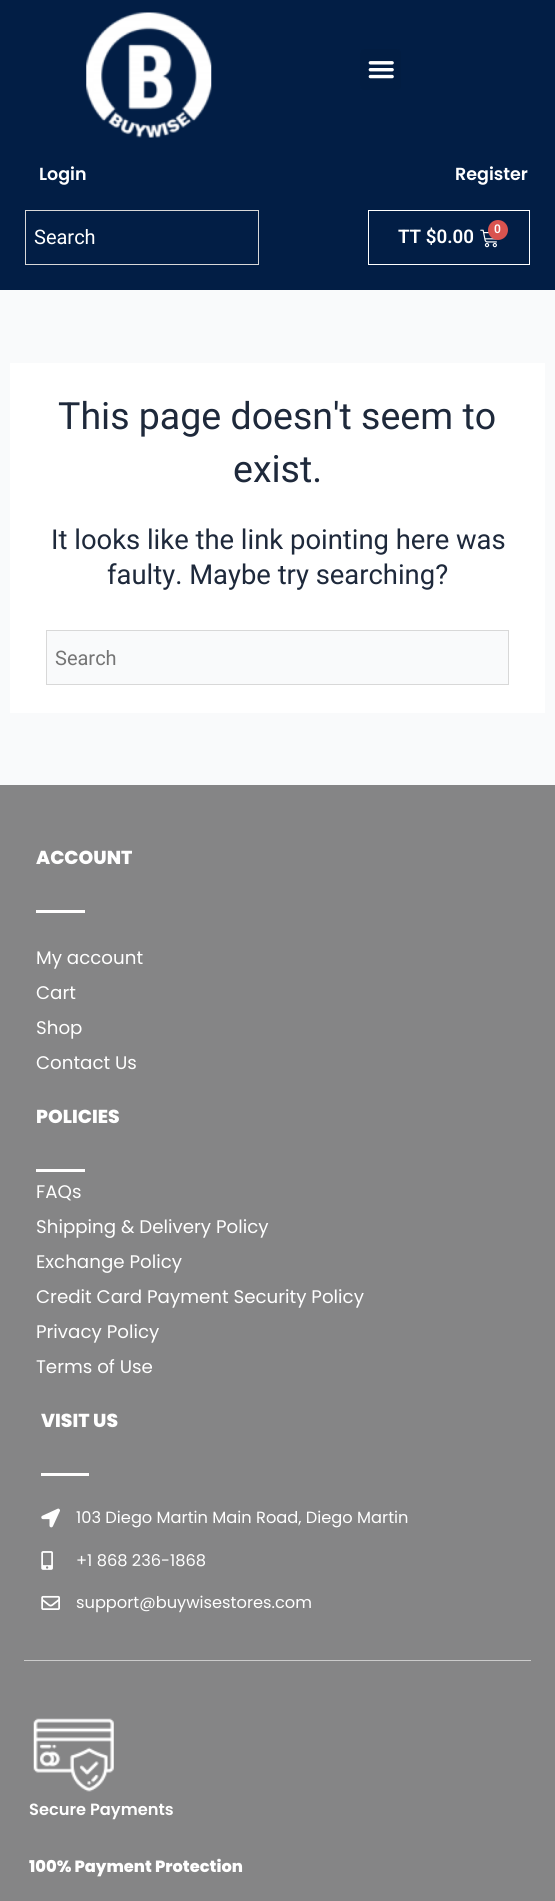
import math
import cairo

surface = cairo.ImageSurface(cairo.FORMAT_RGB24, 555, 1901)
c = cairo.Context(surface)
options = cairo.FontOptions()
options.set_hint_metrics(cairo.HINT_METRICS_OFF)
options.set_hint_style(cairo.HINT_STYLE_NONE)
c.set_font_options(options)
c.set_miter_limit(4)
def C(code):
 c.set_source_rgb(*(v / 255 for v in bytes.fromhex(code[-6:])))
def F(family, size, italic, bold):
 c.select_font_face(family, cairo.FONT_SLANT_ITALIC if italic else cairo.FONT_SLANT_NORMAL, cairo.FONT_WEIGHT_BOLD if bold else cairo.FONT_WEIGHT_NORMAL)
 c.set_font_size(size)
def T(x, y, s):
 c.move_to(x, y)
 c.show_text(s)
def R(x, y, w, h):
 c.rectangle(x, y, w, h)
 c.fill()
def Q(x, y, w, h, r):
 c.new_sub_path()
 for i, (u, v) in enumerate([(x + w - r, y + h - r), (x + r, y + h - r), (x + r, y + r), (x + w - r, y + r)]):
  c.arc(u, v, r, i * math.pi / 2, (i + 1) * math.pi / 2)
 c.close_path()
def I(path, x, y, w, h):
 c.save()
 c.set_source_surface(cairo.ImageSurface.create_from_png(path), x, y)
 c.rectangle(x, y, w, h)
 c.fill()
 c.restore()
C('f9fafb')
c.paint()
C('021e45')
R(0,0,555,290)
I('1.png',86,12,126,126)
C('021d42')
Q(360,49,41,41,4)
c.fill()
I('2.png',368,61,26,18)
F('Poppins SemiBold',17.5,0,0)
C('ffffff')
T(39,180,'Login')
T(455,180,'Register')
c.rectangle(25.5,210.5,233,54)
C('d8d8d8')
c.set_line_width(1)
c.stroke()
F('Roboto',20,0,0)
C('ffffff')
T(34,244,'Search')
c.rectangle(368.5,210.5,161,54)
c.stroke()
F('Roboto SemiBold',18.75,0,0)
T(398,243,'TT $0.00')
I('3.png',480,229,17,19)
C('d9534f')
c.arc(498,230,10,0,2 * math.pi)
c.fill()
F('Roboto SemiBold',12,0,0)
C('ffffff')
T(494,233,'0')
R(10,363,535,350)
F('Roboto',37.5,0,0)
C('1e293b')
T(58,429,'This page doesn\'t seem to')
T(233,482,'exist.')
F('Roboto',27.4,0,0)
T(51,549,'It looks like the link pointing here was')
T(107,584,'faulty. Maybe try searching?')
C('f9fafb')
c.rectangle(46.5,630.5,462,54)
c.fill_preserve()
C('d8d8d8')
c.stroke()
F('Roboto',20,0,0)
C('757575')
T(55,665,'Search')
C('858586')
R(0,785,555,1116)
F('Poppins ExtraBold',18.75,0,0)
C('ffffff')
T(36,864,'ACCOUNT')
C('fffefe')
R(36,910,49,3)
F('Poppins',18.25,0,0)
C('ffffff')
T(36,964,'My account')
T(36,999,'Cart')
T(36,1034,'Shop')
T(36,1069,'Contact Us')
F('Poppins ExtraBold',18.75,0,0)
T(36,1123,'POLICIES')
C('fffefe')
R(36,1169,49,3)
F('Poppins',18.25,0,0)
C('ffffff')
T(36,1198,'FAQs')
T(36,1233,'Shipping & Delivery Policy')
T(36,1268,'Exchange Policy')
T(36,1303,'Credit Card Payment Security Policy')
T(36,1338,'Privacy Policy')
T(36,1373,'Terms of Use')
F('Poppins ExtraBold',18.75,0,0)
T(41,1427,'VISIT US')
C('fffefe')
R(41,1473,48,3)
I('4.png',41,1508,19,20)
F('Poppins',16.25,0,0)
C('ffffff')
T(76,1523,'103 Diego Martin Main Road, Diego Martin')
I('5.png',41,1551,12,19)
T(76,1566,'+1 868 236-1868')
I('6.png',41,1595,19,15)
T(76,1608,'support@buywisestores.com')
C('cbcbcb')
R(24,1660,507,1)
I('7.png',33,1718,81,74)
F('Poppins SemiBold',16.25,0,0)
C('ffffff')
T(29,1815,'Secure Payments')
F('Poppins ExtraBold',16.25,0,0)
T(29,1872,'100% Payment Protection')
surface.write_to_png('o.png')
